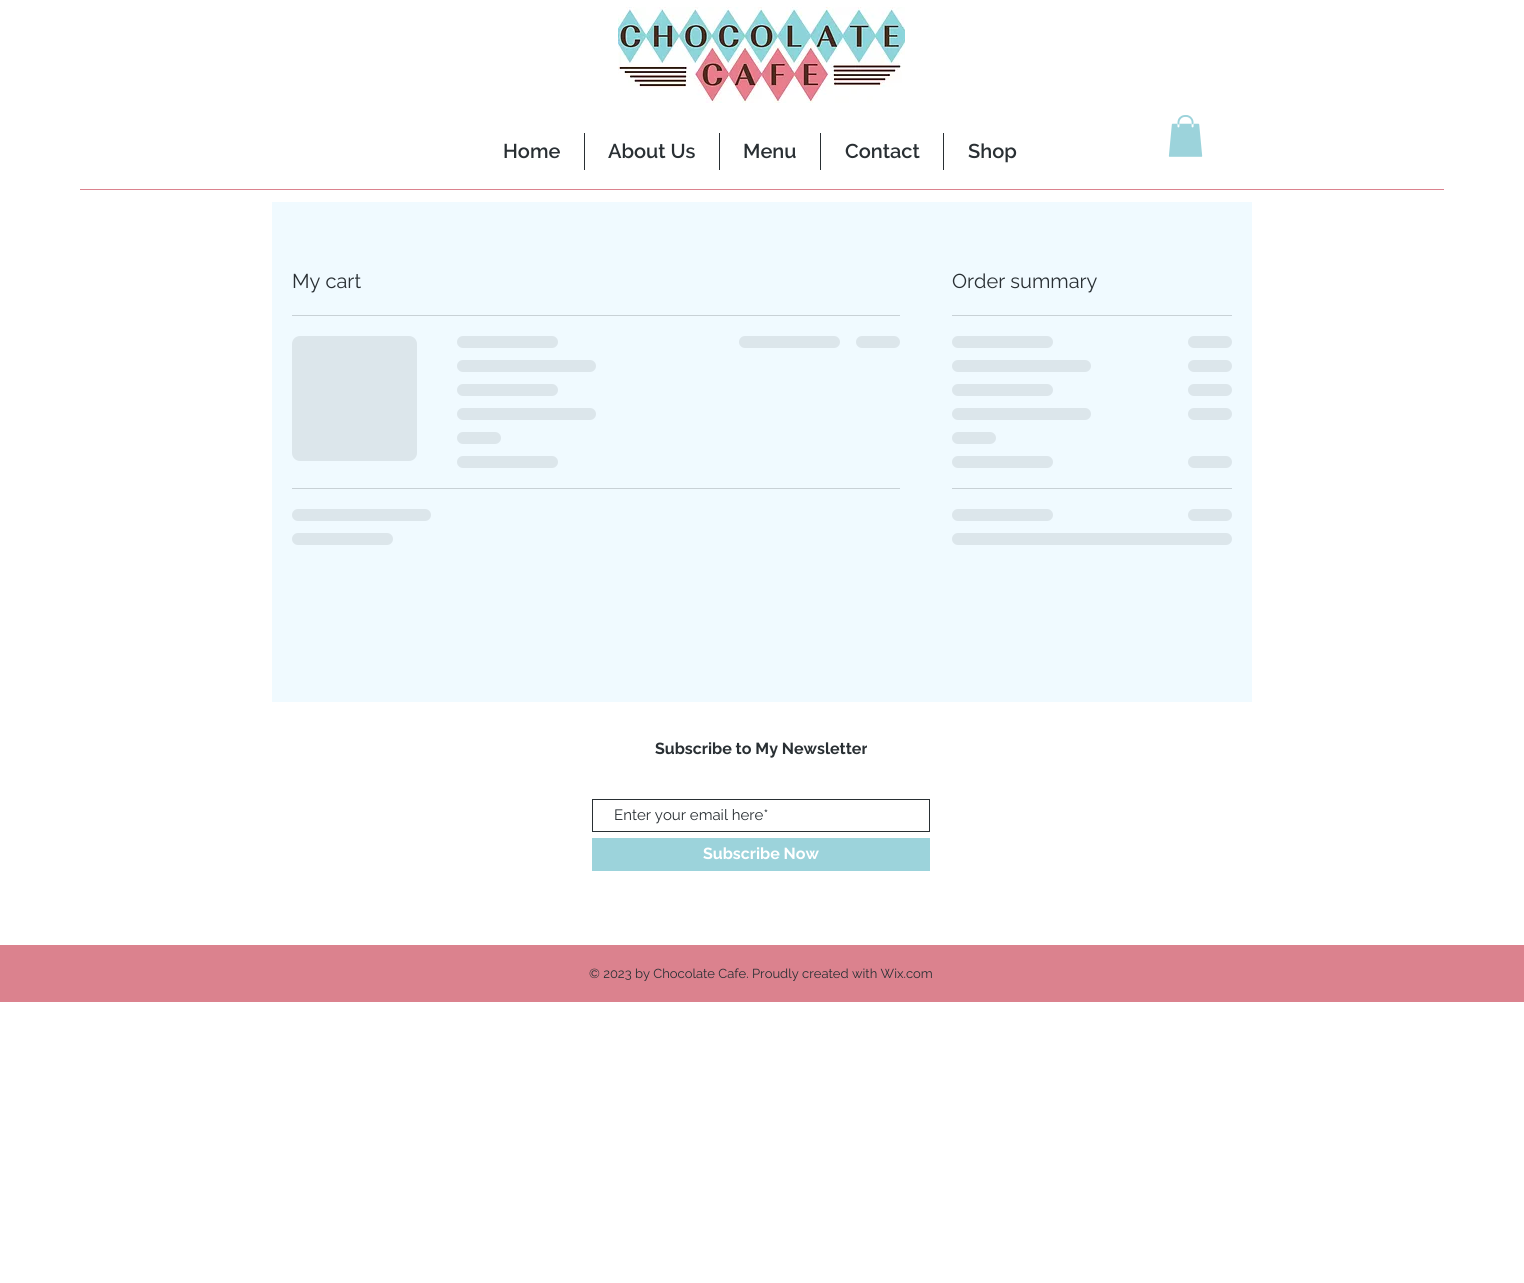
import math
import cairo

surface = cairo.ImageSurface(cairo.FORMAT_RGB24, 1524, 1283)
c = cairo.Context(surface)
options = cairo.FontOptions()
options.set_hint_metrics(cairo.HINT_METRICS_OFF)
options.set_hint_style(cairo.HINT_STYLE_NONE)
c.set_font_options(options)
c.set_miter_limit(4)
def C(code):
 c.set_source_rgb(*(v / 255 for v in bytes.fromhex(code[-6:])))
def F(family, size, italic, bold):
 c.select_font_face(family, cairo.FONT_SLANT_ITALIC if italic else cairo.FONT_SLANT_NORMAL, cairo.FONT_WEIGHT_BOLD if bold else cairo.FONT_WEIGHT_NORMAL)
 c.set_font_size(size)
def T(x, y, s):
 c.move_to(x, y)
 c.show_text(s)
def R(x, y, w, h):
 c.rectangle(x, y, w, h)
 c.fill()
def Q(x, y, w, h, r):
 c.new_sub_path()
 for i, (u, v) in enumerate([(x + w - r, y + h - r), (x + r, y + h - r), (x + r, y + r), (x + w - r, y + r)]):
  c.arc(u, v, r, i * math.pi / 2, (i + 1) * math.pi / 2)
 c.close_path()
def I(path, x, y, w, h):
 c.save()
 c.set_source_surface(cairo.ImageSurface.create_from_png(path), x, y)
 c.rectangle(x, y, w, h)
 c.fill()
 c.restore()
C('ffffff')
c.paint()
I('1.png',618,7,287,96)
F('Raleway SemiBold',20,0,0)
C('292f33')
T(503,158,'Home')
R(584,133,1,37)
T(608,158,'About Us')
R(719,133,1,37)
T(743,158,'Menu')
R(820,133,1,37)
T(845,158,'Contact')
R(943,133,1,37)
T(968,158,'Shop')
I('2.png',1168,115,35,42)
C('db828e')
R(80,189,1364,1)
C('f0faff')
R(272,202,980,500)
C('c8d1d6')
R(292,315,608,1)
F('Raleway',20,0,0)
C('292f33')
T(292,288,'My cart')
gradient = cairo.LinearGradient(292,399,792,399)
gradient.add_color_stop_rgba(.25,0.863,0.902,0.922,1)
gradient.add_color_stop_rgba(.37,0.784,0.82,0.839,1)
gradient.add_color_stop_rgba(.63,0.863,0.902,0.922,1)
c.set_source(gradient)
Q(292,336,125,125,8)
c.fill()
gradient = cairo.LinearGradient(457,342,861,342)
gradient.add_color_stop_rgba(.25,0.863,0.902,0.922,1)
gradient.add_color_stop_rgba(.37,0.784,0.82,0.839,1)
gradient.add_color_stop_rgba(.63,0.863,0.902,0.922,1)
c.set_source(gradient)
Q(457,336,101,12,6)
c.fill()
gradient = cairo.LinearGradient(457,366,1013,366)
gradient.add_color_stop_rgba(.25,0.863,0.902,0.922,1)
gradient.add_color_stop_rgba(.37,0.784,0.82,0.839,1)
gradient.add_color_stop_rgba(.63,0.863,0.902,0.922,1)
c.set_source(gradient)
Q(457,360,139,12,6)
c.fill()
gradient = cairo.LinearGradient(457,390,861,390)
gradient.add_color_stop_rgba(.25,0.863,0.902,0.922,1)
gradient.add_color_stop_rgba(.37,0.784,0.82,0.839,1)
gradient.add_color_stop_rgba(.63,0.863,0.902,0.922,1)
c.set_source(gradient)
Q(457,384,101,12,6)
c.fill()
gradient = cairo.LinearGradient(457,414,1013,414)
gradient.add_color_stop_rgba(.25,0.863,0.902,0.922,1)
gradient.add_color_stop_rgba(.37,0.784,0.82,0.839,1)
gradient.add_color_stop_rgba(.63,0.863,0.902,0.922,1)
c.set_source(gradient)
Q(457,408,139,12,6)
c.fill()
gradient = cairo.LinearGradient(457,438,633,438)
gradient.add_color_stop_rgba(.25,0.863,0.902,0.922,1)
gradient.add_color_stop_rgba(.37,0.784,0.82,0.839,1)
gradient.add_color_stop_rgba(.63,0.863,0.902,0.922,1)
c.set_source(gradient)
Q(457,432,44,12,6)
c.fill()
gradient = cairo.LinearGradient(457,462,861,462)
gradient.add_color_stop_rgba(.25,0.863,0.902,0.922,1)
gradient.add_color_stop_rgba(.37,0.784,0.82,0.839,1)
gradient.add_color_stop_rgba(.63,0.863,0.902,0.922,1)
c.set_source(gradient)
Q(457,456,101,12,6)
c.fill()
gradient = cairo.LinearGradient(739,342,1143,342)
gradient.add_color_stop_rgba(.25,0.863,0.902,0.922,1)
gradient.add_color_stop_rgba(.37,0.784,0.82,0.839,1)
gradient.add_color_stop_rgba(.63,0.863,0.902,0.922,1)
c.set_source(gradient)
Q(739,336,101,12,6)
c.fill()
gradient = cairo.LinearGradient(856,342,1032,342)
gradient.add_color_stop_rgba(.25,0.863,0.902,0.922,1)
gradient.add_color_stop_rgba(.37,0.784,0.82,0.839,1)
gradient.add_color_stop_rgba(.63,0.863,0.902,0.922,1)
c.set_source(gradient)
Q(856,336,44,12,6)
c.fill()
C('c8d1d6')
R(292,488,608,1)
gradient = cairo.LinearGradient(292,515,848,515)
gradient.add_color_stop_rgba(.25,0.863,0.902,0.922,1)
gradient.add_color_stop_rgba(.37,0.784,0.82,0.839,1)
gradient.add_color_stop_rgba(.63,0.863,0.902,0.922,1)
c.set_source(gradient)
Q(292,509,139,12,6)
c.fill()
gradient = cairo.LinearGradient(292,539,696,539)
gradient.add_color_stop_rgba(.25,0.863,0.902,0.922,1)
gradient.add_color_stop_rgba(.37,0.784,0.82,0.839,1)
gradient.add_color_stop_rgba(.63,0.863,0.902,0.922,1)
c.set_source(gradient)
Q(292,533,101,12,6)
c.fill()
C('c8d1d6')
R(952,315,280,1)
C('292f33')
T(952,288,'Order summary')
gradient = cairo.LinearGradient(952,342,1356,342)
gradient.add_color_stop_rgba(.25,0.863,0.902,0.922,1)
gradient.add_color_stop_rgba(.37,0.784,0.82,0.839,1)
gradient.add_color_stop_rgba(.63,0.863,0.902,0.922,1)
c.set_source(gradient)
Q(952,336,101,12,6)
c.fill()
gradient = cairo.LinearGradient(1188,342,1364,342)
gradient.add_color_stop_rgba(.25,0.863,0.902,0.922,1)
gradient.add_color_stop_rgba(.37,0.784,0.82,0.839,1)
gradient.add_color_stop_rgba(.63,0.863,0.902,0.922,1)
c.set_source(gradient)
Q(1188,336,44,12,6)
c.fill()
gradient = cairo.LinearGradient(952,366,1508,366)
gradient.add_color_stop_rgba(.25,0.863,0.902,0.922,1)
gradient.add_color_stop_rgba(.37,0.784,0.82,0.839,1)
gradient.add_color_stop_rgba(.63,0.863,0.902,0.922,1)
c.set_source(gradient)
Q(952,360,139,12,6)
c.fill()
gradient = cairo.LinearGradient(1188,366,1364,366)
gradient.add_color_stop_rgba(.25,0.863,0.902,0.922,1)
gradient.add_color_stop_rgba(.37,0.784,0.82,0.839,1)
gradient.add_color_stop_rgba(.63,0.863,0.902,0.922,1)
c.set_source(gradient)
Q(1188,360,44,12,6)
c.fill()
gradient = cairo.LinearGradient(952,390,1356,390)
gradient.add_color_stop_rgba(.25,0.863,0.902,0.922,1)
gradient.add_color_stop_rgba(.37,0.784,0.82,0.839,1)
gradient.add_color_stop_rgba(.63,0.863,0.902,0.922,1)
c.set_source(gradient)
Q(952,384,101,12,6)
c.fill()
gradient = cairo.LinearGradient(1188,390,1364,390)
gradient.add_color_stop_rgba(.25,0.863,0.902,0.922,1)
gradient.add_color_stop_rgba(.37,0.784,0.82,0.839,1)
gradient.add_color_stop_rgba(.63,0.863,0.902,0.922,1)
c.set_source(gradient)
Q(1188,384,44,12,6)
c.fill()
gradient = cairo.LinearGradient(952,414,1508,414)
gradient.add_color_stop_rgba(.25,0.863,0.902,0.922,1)
gradient.add_color_stop_rgba(.37,0.784,0.82,0.839,1)
gradient.add_color_stop_rgba(.63,0.863,0.902,0.922,1)
c.set_source(gradient)
Q(952,408,139,12,6)
c.fill()
gradient = cairo.LinearGradient(1188,414,1364,414)
gradient.add_color_stop_rgba(.25,0.863,0.902,0.922,1)
gradient.add_color_stop_rgba(.37,0.784,0.82,0.839,1)
gradient.add_color_stop_rgba(.63,0.863,0.902,0.922,1)
c.set_source(gradient)
Q(1188,408,44,12,6)
c.fill()
gradient = cairo.LinearGradient(952,438,1128,438)
gradient.add_color_stop_rgba(.25,0.863,0.902,0.922,1)
gradient.add_color_stop_rgba(.37,0.784,0.82,0.839,1)
gradient.add_color_stop_rgba(.63,0.863,0.902,0.922,1)
c.set_source(gradient)
Q(952,432,44,12,6)
c.fill()
gradient = cairo.LinearGradient(952,462,1356,462)
gradient.add_color_stop_rgba(.25,0.863,0.902,0.922,1)
gradient.add_color_stop_rgba(.37,0.784,0.82,0.839,1)
gradient.add_color_stop_rgba(.63,0.863,0.902,0.922,1)
c.set_source(gradient)
Q(952,456,101,12,6)
c.fill()
gradient = cairo.LinearGradient(1188,462,1364,462)
gradient.add_color_stop_rgba(.25,0.863,0.902,0.922,1)
gradient.add_color_stop_rgba(.37,0.784,0.82,0.839,1)
gradient.add_color_stop_rgba(.63,0.863,0.902,0.922,1)
c.set_source(gradient)
Q(1188,456,44,12,6)
c.fill()
C('c8d1d6')
R(952,488,280,1)
gradient = cairo.LinearGradient(952,515,1356,515)
gradient.add_color_stop_rgba(.25,0.863,0.902,0.922,1)
gradient.add_color_stop_rgba(.37,0.784,0.82,0.839,1)
gradient.add_color_stop_rgba(.63,0.863,0.902,0.922,1)
c.set_source(gradient)
Q(952,509,101,12,6)
c.fill()
gradient = cairo.LinearGradient(1188,515,1364,515)
gradient.add_color_stop_rgba(.25,0.863,0.902,0.922,1)
gradient.add_color_stop_rgba(.37,0.784,0.82,0.839,1)
gradient.add_color_stop_rgba(.63,0.863,0.902,0.922,1)
c.set_source(gradient)
Q(1188,509,44,12,6)
c.fill()
gradient = cairo.LinearGradient(952,539,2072,539)
gradient.add_color_stop_rgba(.25,0.863,0.902,0.922,1)
gradient.add_color_stop_rgba(.37,0.784,0.82,0.839,1)
gradient.add_color_stop_rgba(.63,0.863,0.902,0.922,1)
c.set_source(gradient)
Q(952,533,280,12,6)
c.fill()
F('Raleway',16,0,1)
C('292f33')
T(655,754,'Subscribe to My Newsletter')
c.rectangle(592.5,799.5,337,32)
c.set_line_width(1)
c.stroke()
F('Raleway',15,0,0)
T(614,820,'Enter your email here*')
C('9cd3db')
R(592,838,338,33)
F('Raleway',16,0,1)
C('ffffff')
T(703,859,'Subscribe Now')
C('db828e')
R(0,945,1524,57)
F('Raleway',13,0,0)
C('292f33')
T(589,978,'© 2023 by Chocolate Cafe. Proudly created with Wix.com')
surface.write_to_png('o.png')
